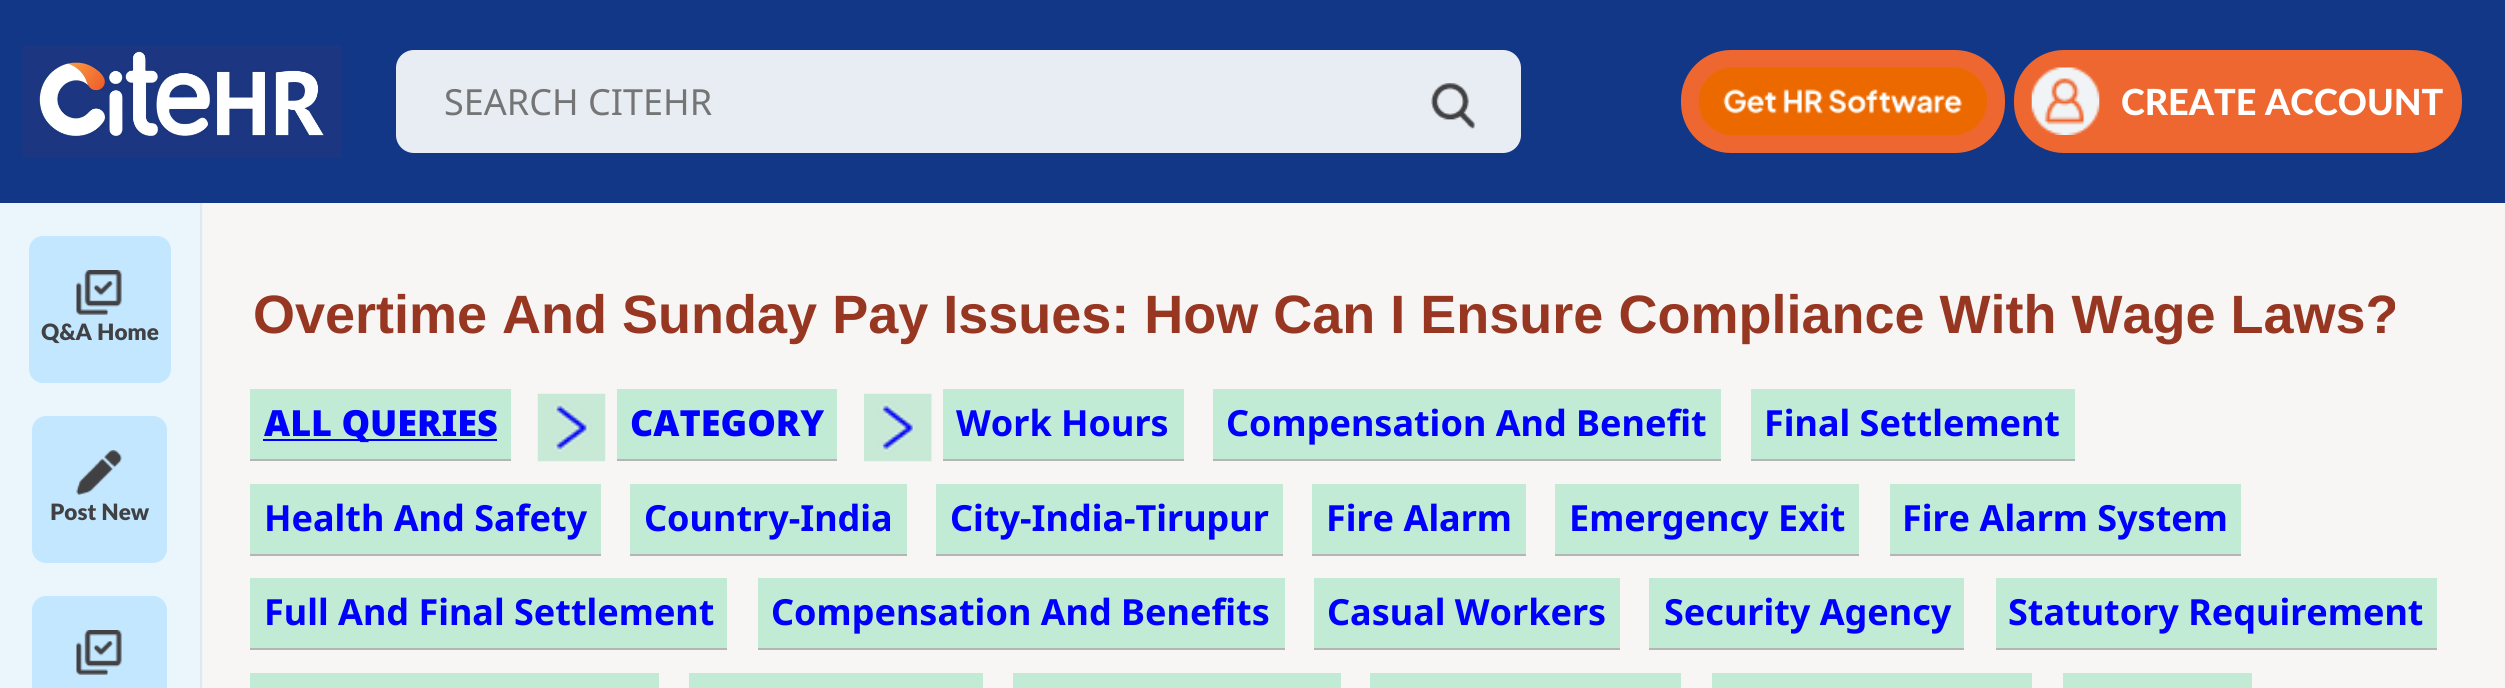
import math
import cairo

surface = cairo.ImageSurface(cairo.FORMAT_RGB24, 2505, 688)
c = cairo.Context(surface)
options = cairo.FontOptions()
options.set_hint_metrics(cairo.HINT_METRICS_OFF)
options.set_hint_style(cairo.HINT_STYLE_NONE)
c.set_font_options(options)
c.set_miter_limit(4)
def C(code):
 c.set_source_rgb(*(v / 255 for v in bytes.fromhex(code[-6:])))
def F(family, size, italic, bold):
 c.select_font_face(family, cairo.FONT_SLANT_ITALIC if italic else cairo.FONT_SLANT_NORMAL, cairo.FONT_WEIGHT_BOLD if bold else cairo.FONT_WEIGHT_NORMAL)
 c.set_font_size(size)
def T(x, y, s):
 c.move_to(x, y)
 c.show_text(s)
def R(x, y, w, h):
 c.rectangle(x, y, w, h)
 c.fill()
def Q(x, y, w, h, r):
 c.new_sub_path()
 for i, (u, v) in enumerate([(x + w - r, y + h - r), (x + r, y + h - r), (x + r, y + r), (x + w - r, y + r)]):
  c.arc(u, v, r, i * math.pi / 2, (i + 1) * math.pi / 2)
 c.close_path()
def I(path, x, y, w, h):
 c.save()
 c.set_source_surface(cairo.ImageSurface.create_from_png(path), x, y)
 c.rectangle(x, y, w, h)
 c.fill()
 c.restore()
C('f7f6f5')
c.paint()
C('123787')
R(0,0,2505,203)
I('1.png',22,45,320,113)
C('e7edf2')
Q(396,50,1125,103,18)
c.fill()
F('Noto Sans',36,0,0)
C('757575')
T(444,115,'SEARCH CITEHR')
I('2.png',1431,83,44,46)
C('ef6730')
Q(1681,50,324,103,50)
c.fill()
I('3.png',1698,67,289,68)
Q(2014,50,448,103,50)
c.fill()
I('4.png',2031,67,69,68)
F('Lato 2 Black',36,0,0)
C('ffffff')
T(2121,115,'CREATE ACCOUNT')
C('ebf6fc')
R(0,203,203,485)
C('e6e7e8')
R(200,203,2,485)
C('c2e7ff')
Q(29,236,142,147,14)
c.fill()
I('5.png',76,270,46,45)
F('Lato Black',22.5,0,0)
C('414042')
T(41,340,'Q&A Home')
C('c2e7ff')
Q(32,416,135,147,14)
c.fill()
I('6.png',76,450,46,45)
C('414042')
T(50,520,'Post New')
C('c2e7ff')
Q(32,596,135,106,14)
c.fill()
I('5.png',76,630,46,45)
F('Liberation Sans',54,0,1)
C('973722')
T(253,333,'Overtime And Sunday Pay Issues: How Can I Ensure Compliance With Wage Laws?')
I('7.png',537,393,69,69)
I('8.png',864,393,68,69)
C('c2ebd5')
R(943,389,241,70)
C('b5b5b5')
R(943,459,241,2)
F('Noto Sans',36,0,1)
C('0000ff')
T(956,436,'Work Hours')
C('c2ebd5')
R(1213,389,508,70)
C('b5b5b5')
R(1213,459,508,2)
C('0000ff')
T(1226,436,'Compensation And Benefit')
C('c2ebd5')
R(1751,389,324,70)
C('b5b5b5')
R(1751,459,324,2)
C('0000ff')
T(1764,436,'Final Settlement')
C('c2ebd5')
R(250,484,351,70)
C('b5b5b5')
R(250,554,351,2)
C('0000ff')
T(264,531,'Health And Safety')
C('c2ebd5')
R(630,484,277,70)
C('b5b5b5')
R(630,554,277,2)
C('0000ff')
T(644,531,'Country-India')
C('c2ebd5')
R(936,484,347,70)
C('b5b5b5')
R(936,554,347,2)
C('0000ff')
T(950,531,'City-India-Tirupur')
C('c2ebd5')
R(1312,484,214,70)
C('b5b5b5')
R(1312,554,214,2)
C('0000ff')
T(1326,531,'Fire Alarm')
C('c2ebd5')
R(1555,484,304,70)
C('b5b5b5')
R(1555,554,304,2)
C('0000ff')
T(1569,531,'Emergency Exit')
C('c2ebd5')
R(1890,484,351,70)
C('b5b5b5')
R(1890,554,351,2)
C('0000ff')
T(1902,531,'Fire Alarm System')
C('c2ebd5')
R(250,578,477,70)
C('b5b5b5')
R(250,648,477,2)
C('0000ff')
T(264,625,'Full And Final Settlement')
C('c2ebd5')
R(758,578,527,70)
C('b5b5b5')
R(758,648,527,2)
C('0000ff')
T(771,625,'Compensation And Benefits')
C('c2ebd5')
R(1314,578,306,70)
C('b5b5b5')
R(1314,648,306,2)
C('0000ff')
T(1327,625,'Casual Workers')
C('c2ebd5')
R(1649,578,315,70)
C('b5b5b5')
R(1649,648,315,2)
C('0000ff')
T(1664,625,'Security Agency')
C('c2ebd5')
R(1996,578,441,70)
C('b5b5b5')
R(1996,648,441,2)
C('0000ff')
T(2008,625,'Statutory Requirement')
C('c2ebd5')
R(250,673,409,15)
R(689,673,294,15)
R(1013,673,328,15)
R(1370,673,311,15)
R(1712,673,320,15)
R(2063,673,189,15)
R(250,389,261,70)
C('b5b5b5')
R(250,459,261,2)
C('0000ff')
R(263,439,234,2)
F('Noto Sans Black',36,0,0)
T(264,436,'ALL QUERIES')
C('c2ebd5')
R(617,389,220,70)
C('b5b5b5')
R(617,459,220,2)
C('0000ff')
T(630,436,'CATEGORY')
surface.write_to_png('o.png')
